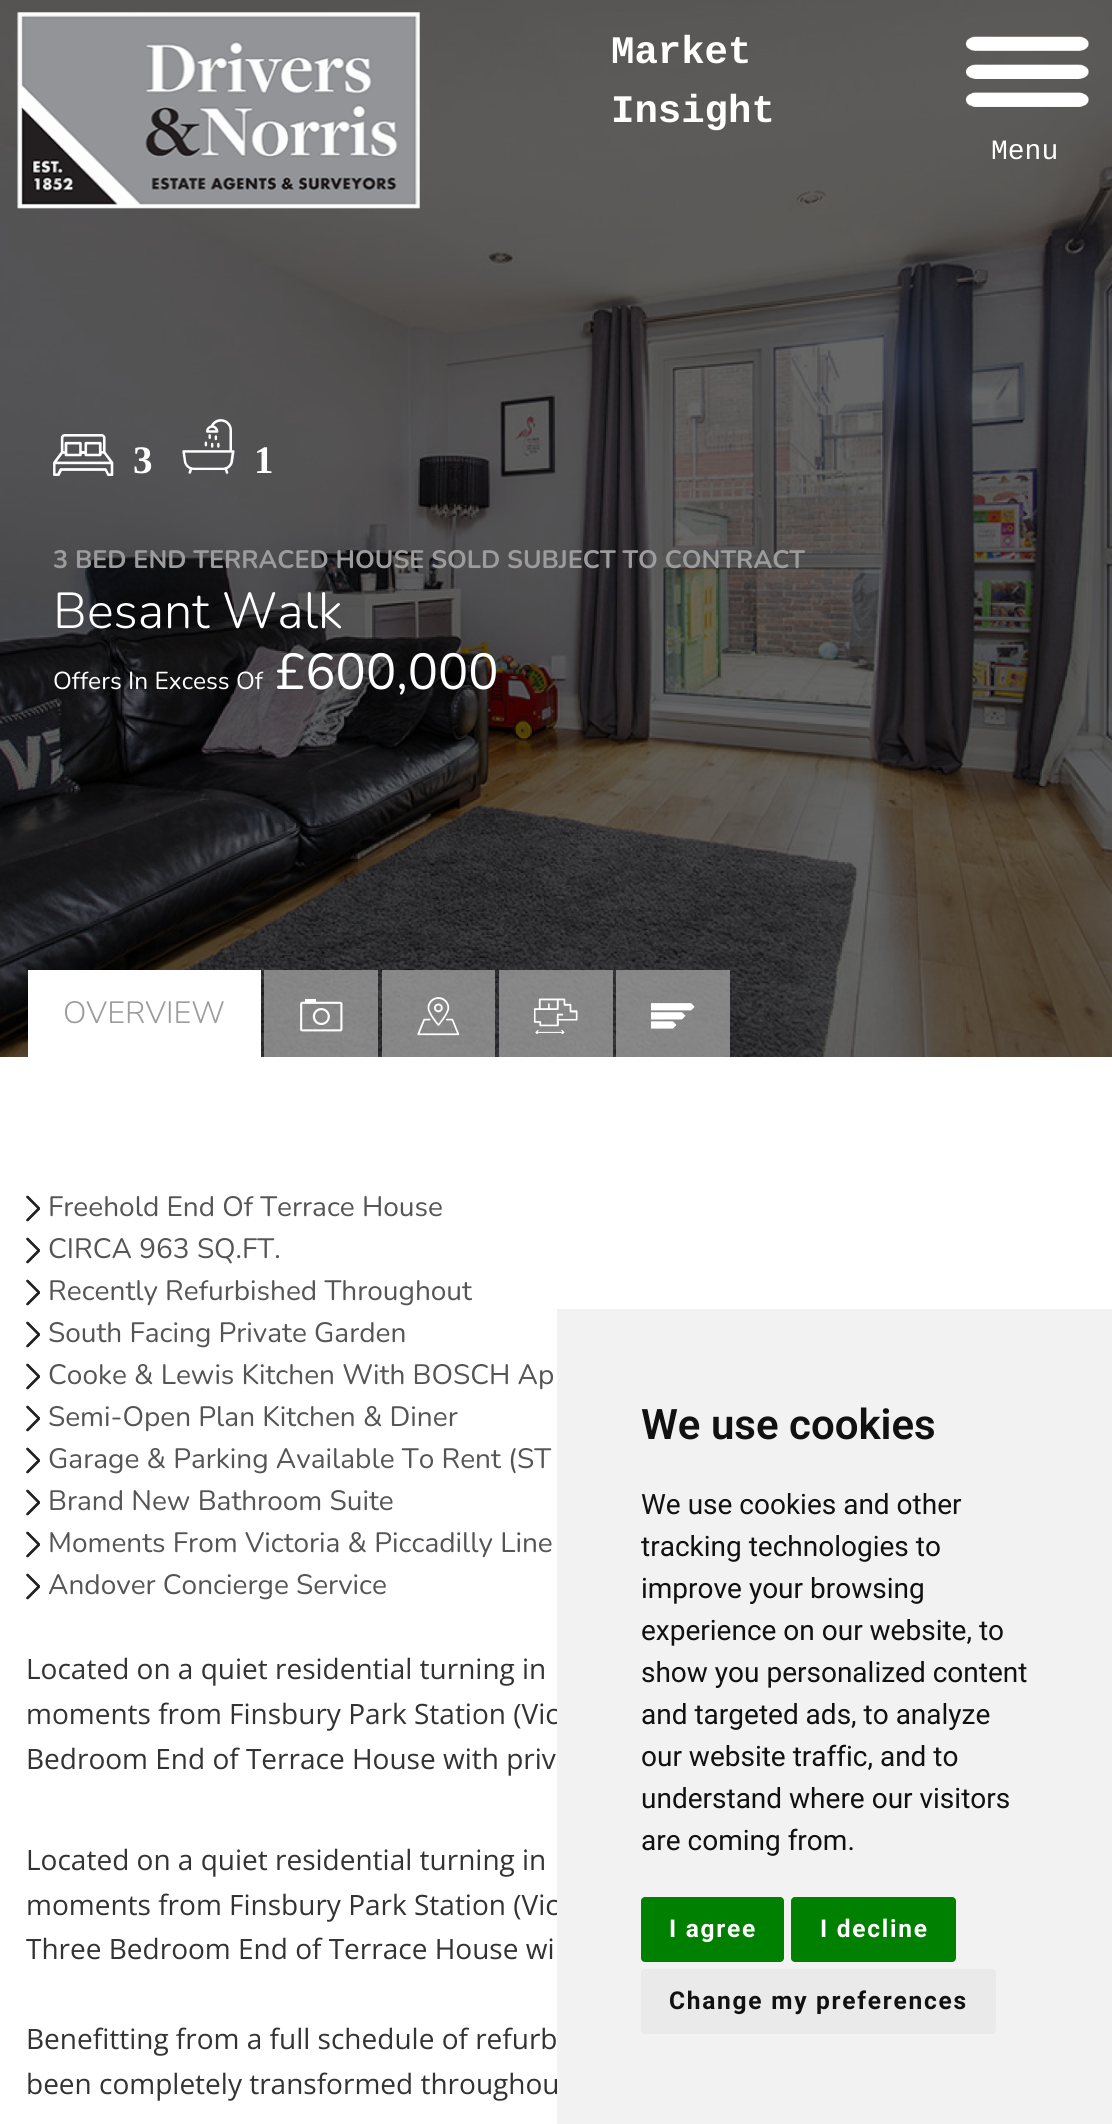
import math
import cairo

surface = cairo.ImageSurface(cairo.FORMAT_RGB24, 1112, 2124)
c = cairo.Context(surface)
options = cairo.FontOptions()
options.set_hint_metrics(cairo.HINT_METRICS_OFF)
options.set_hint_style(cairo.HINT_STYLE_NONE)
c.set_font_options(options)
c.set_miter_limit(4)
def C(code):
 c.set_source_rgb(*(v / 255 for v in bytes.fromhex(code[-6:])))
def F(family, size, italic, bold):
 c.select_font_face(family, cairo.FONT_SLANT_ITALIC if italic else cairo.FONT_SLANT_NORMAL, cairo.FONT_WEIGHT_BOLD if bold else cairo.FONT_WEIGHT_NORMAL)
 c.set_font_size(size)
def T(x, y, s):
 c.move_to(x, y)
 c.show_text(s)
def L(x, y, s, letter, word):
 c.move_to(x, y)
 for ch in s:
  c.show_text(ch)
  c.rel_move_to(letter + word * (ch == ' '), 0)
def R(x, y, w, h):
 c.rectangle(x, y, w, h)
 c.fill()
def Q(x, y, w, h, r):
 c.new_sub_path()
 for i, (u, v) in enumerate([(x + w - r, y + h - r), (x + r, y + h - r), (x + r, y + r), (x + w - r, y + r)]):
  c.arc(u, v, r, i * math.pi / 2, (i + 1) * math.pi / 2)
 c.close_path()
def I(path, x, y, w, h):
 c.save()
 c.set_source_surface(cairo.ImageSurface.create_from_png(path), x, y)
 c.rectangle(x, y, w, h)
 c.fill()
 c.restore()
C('ffffff')
c.paint()
I('3.png',0,0,1112,1057)
I('1.png',17,12,403,197)
F('Liberation Mono',39,0,1)
C('ffffff')
T(611,63,'Market')
T(611,122,'Insight')
I('2.png',966,36,123,71)
F('Liberation Mono',28,0,0)
T(991,159,'Menu')
I('4.png',53,434,61,42)
F('Liberation Serif',39,0,1)
T(133,473,'3')
I('5.png',182,419,53,55)
T(254,473,'1')
F('Nunito',25.2,0,1)
C('9d9c9c')
T(53,568,'3 BED END TERRACED HOUSE SOLD SUBJECT TO CONTRACT')
F('Nunito Light',50.5,0,0)
C('ffffff')
T(53,628,'Besant Walk')
F('Nunito',24.5,0,0)
T(53,689,'Offers In Excess Of')
F('Nunito',50.5,0,0)
T(275,689,'£600,000')
R(28,970,233,87)
F('Nunito Light',30.75,0,0)
C('9d9c9c')
T(63,1023,'OVERVIEW')
c.set_source_rgba(0.616,0.612,0.612,0.8)
R(264,970,114,87)
I('6.png',300,999,43,33)
R(382,970,113,87)
I('7.png',417,997,43,39)
R(499,970,114,87)
I('8.png',534,998,44,36)
R(616,970,114,87)
I('9.png',651,1003,44,26)
I('10.png',26,1195,14,27)
F('Nunito',28,0,0)
C('555555')
T(48,1216,'Freehold End Of Terrace House')
I('10.png',26,1237,14,27)
T(48,1258,'CIRCA 963 SQ.FT.')
I('10.png',26,1279,14,27)
T(48,1300,'Recently Refurbished Throughout')
I('10.png',26,1321,14,27)
T(48,1342,'South Facing Private Garden')
I('10.png',26,1363,14,27)
T(48,1384,'Cooke & Lewis Kitchen With BOSCH Ap')
I('10.png',26,1405,14,27)
T(48,1426,'Semi-Open Plan Kitchen & Diner')
I('10.png',26,1447,14,27)
T(48,1468,'Garage & Parking Available To Rent (ST')
I('10.png',26,1489,14,27)
T(48,1510,'Brand New Bathroom Suite')
I('10.png',26,1531,14,27)
T(48,1552,'Moments From Victoria & Piccadilly Line')
I('10.png',26,1573,14,27)
T(48,1594,'Andover Concierge Service')
F('Open Sans',28,0,0)
C('333333')
T(26,1679,'Located on a quiet residential turning in')
T(26,1724,'moments from Finsbury Park Station (Vic')
T(26,1769,'Bedroom End of Terrace House with priv')
T(26,1870,'Located on a quiet residential turning in')
T(26,1915,'moments from Finsbury Park Station (Vic')
T(26,1959,'Three Bedroom End of Terrace House wi')
T(26,2049,'Benefitting from a full schedule of refurb')
T(26,2094,'been completely transformed throughou')
C('f2f2f2')
R(557,1309,555,815)
F('Roboto SemiBold',42,0,0)
C('111111')
T(641,1439,'We use cookies')
F('Roboto',28,0,0)
T(641,1514,'We use cookies and other')
T(641,1556,'tracking technologies to')
T(641,1598,'improve your browsing')
T(641,1640,'experience on our website, to')
T(641,1682,'show you personalized content')
T(641,1724,'and targeted ads, to analyze')
T(641,1766,'our website traffic, and to')
T(641,1808,'understand where our visitors')
T(641,1850,'are coming from.')
C('008000')
Q(641,1897,143,65,4)
c.fill()
F('Roboto',24.5,0,1)
C('ffffff')
L(669,1937,'I agree',1.75,0)
C('008000')
Q(791,1897,165,65,4)
c.fill()
C('ffffff')
L(820,1937,'I decline',1.75,0)
C('eaeaea')
Q(641,1969,355,65,4)
c.fill()
C('111111')
L(669,2009,'Change my preferences',1.75,0)
surface.write_to_png('o.png')
